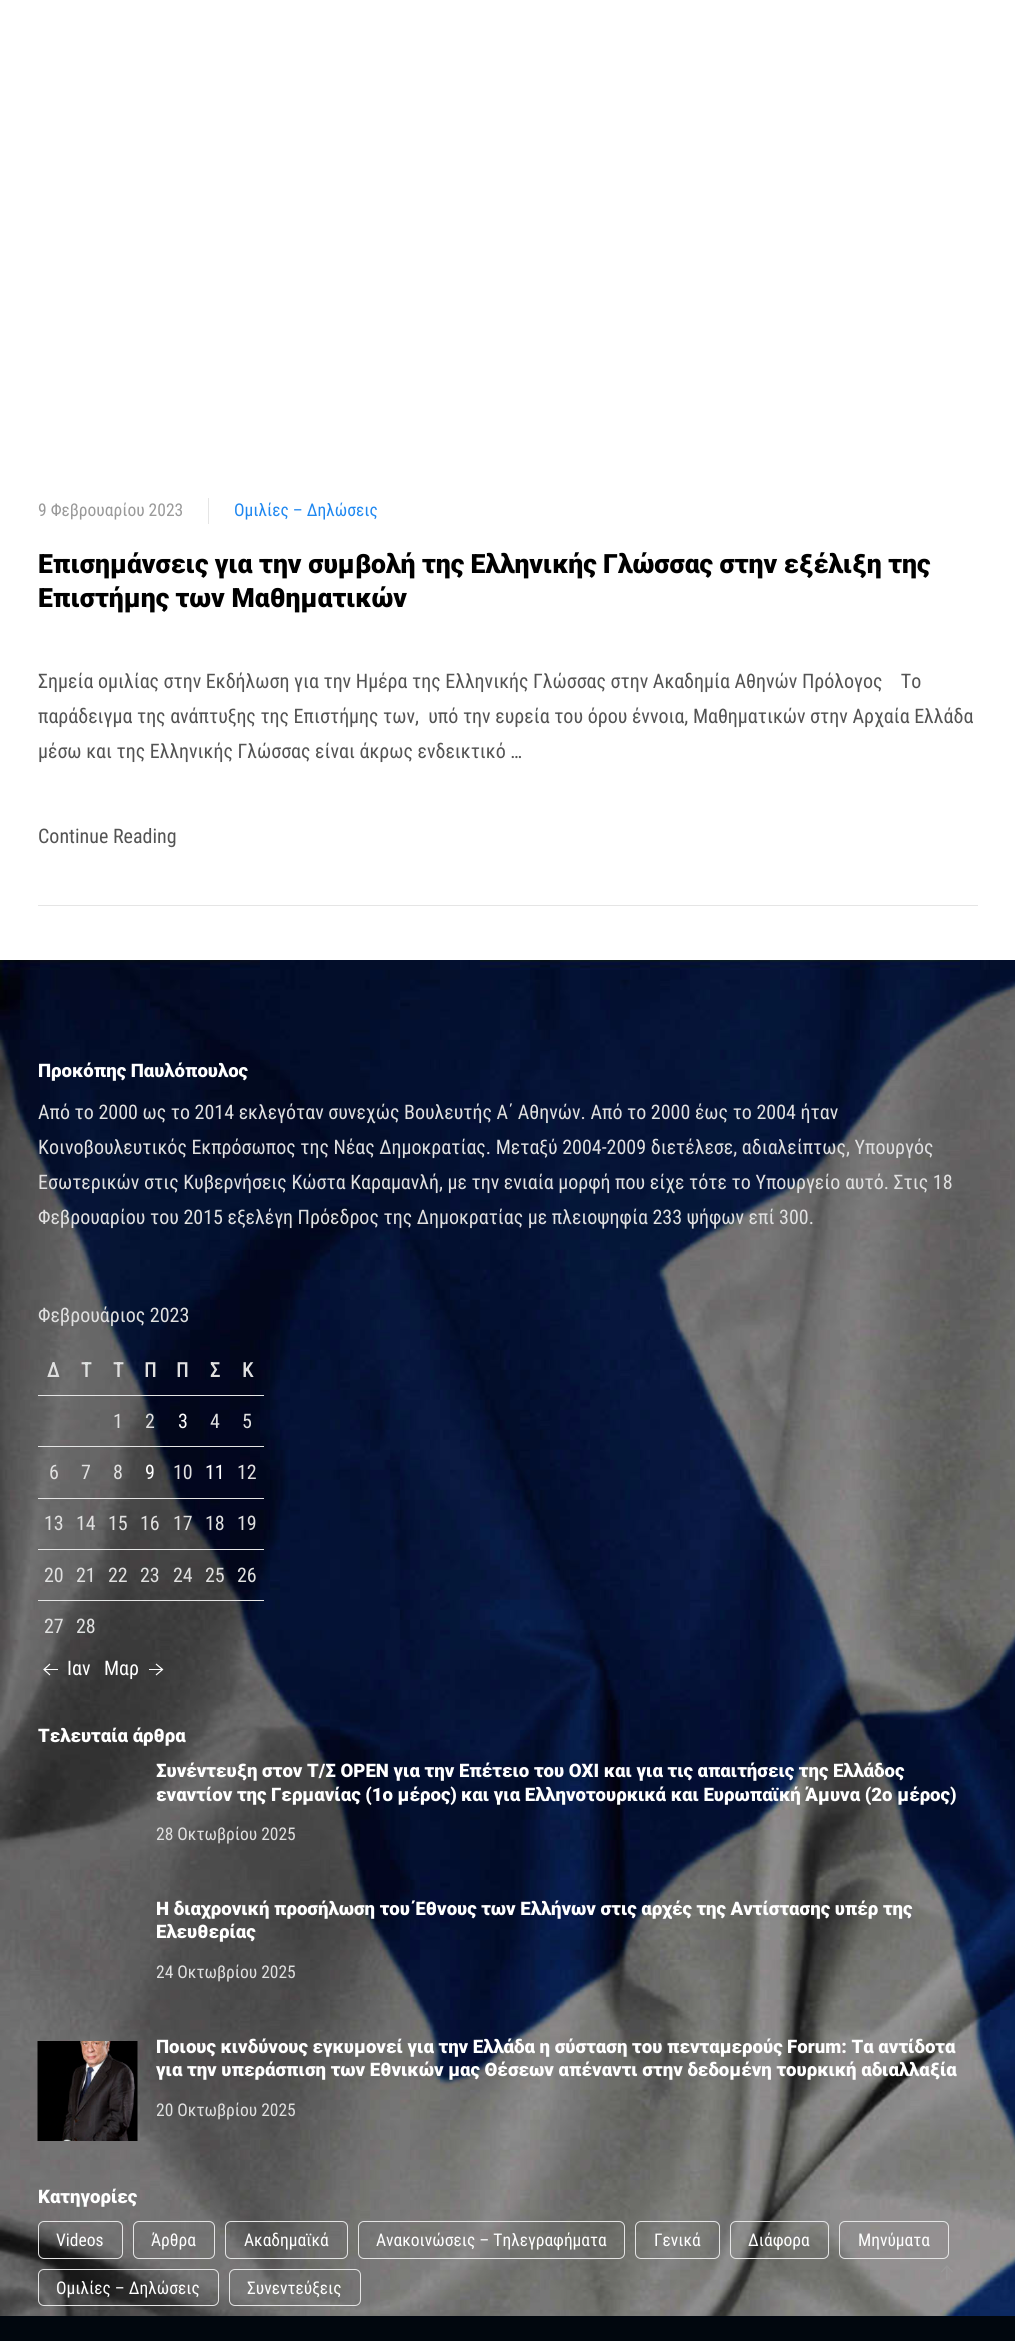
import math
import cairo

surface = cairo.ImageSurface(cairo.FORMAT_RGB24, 1015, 2341)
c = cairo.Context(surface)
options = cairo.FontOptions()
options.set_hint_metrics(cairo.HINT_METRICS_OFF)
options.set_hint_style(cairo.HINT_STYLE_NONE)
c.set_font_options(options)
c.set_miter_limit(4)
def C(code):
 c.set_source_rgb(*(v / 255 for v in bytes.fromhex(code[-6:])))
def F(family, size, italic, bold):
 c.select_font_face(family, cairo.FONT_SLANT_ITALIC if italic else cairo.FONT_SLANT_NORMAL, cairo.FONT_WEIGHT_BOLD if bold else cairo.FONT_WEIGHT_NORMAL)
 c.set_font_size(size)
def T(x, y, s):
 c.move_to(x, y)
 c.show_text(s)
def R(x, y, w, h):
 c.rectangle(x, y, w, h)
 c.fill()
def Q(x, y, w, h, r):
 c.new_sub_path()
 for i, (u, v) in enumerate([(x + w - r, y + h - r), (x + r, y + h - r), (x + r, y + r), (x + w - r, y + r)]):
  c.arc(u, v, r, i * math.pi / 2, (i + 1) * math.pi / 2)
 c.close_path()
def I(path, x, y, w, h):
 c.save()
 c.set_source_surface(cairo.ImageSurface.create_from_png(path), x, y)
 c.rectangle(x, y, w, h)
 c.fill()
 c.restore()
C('ffffff')
c.paint()
F('Roboto Condensed',17.5,0,0)
C('999999')
T(38,516,'9 Φεβρουαρίου 2023')
C('e5e5e5')
R(208,498,1,26)
C('1e87f0')
T(234,516,'Ομιλίες – Δηλώσεις')
F('Roboto Black',26.55,0,0)
C('000000')
T(38,573,'Επισημάνσεις για την συμβολή της Ελληνικής Γλώσσας στην εξέλιξη της')
T(38,607,'Επιστήμης των Μαθηματικών')
F('Roboto Condensed',20,0,0)
C('535353')
T(38,688,'Σημεία ομιλίας στην Εκδήλωση για την Ημέρα της Ελληνικής Γλώσσας στην Ακαδημία Αθηνών Πρόλογος    Το')
T(38,723,'παράδειγμα της ανάπτυξης της Επιστήμης των,  υπό την ευρεία του όρου έννοια, Μαθηματικών στην Αρχαία Ελλάδα')
T(38,758,'μέσω και της Ελληνικής Γλώσσας είναι άκρως ενδεικτικό …')
T(38,843,'Continue Reading')
C('e5e5e5')
R(38,905,940,1)
I('1.png',0,960,1015,1356)
F('Roboto Black',18.6,0,0)
C('ffffff')
T(38,1077,'Προκόπης Παυλόπουλος')
F('Roboto Condensed',20,0,0)
C('e0e0e0')
T(38,1119,'Από το 2000 ως το 2014 εκλεγόταν συνεχώς Βουλευτής Α΄ Αθηνών. Από το 2000 έως το 2004 ήταν')
T(38,1154,'Κοινοβουλευτικός Εκπρόσωπος της Νέας Δημοκρατίας. Μεταξύ 2004-2009 διετέλεσε, αδιαλείπτως, Υπουργός')
T(38,1189,'Εσωτερικών στις Κυβερνήσεις Κώστα Καραμανλή, με την ενιαία μορφή που είχε τότε το Υπουργείο αυτό. Στις 18')
T(38,1224,'Φεβρουαρίου του 2015 εξελέγη Πρόεδρος της Δημοκρατίας με πλειοψηφία 233 ψήφων επί 300.')
T(38,1322,'Φεβρουάριος 2023')
F('Roboto Condensed',20,0,1)
T(47,1377,'Δ')
T(81,1377,'Τ')
T(113,1377,'Τ')
T(144,1377,'Π')
T(176,1377,'Π')
T(210,1377,'Σ')
T(242,1377,'Κ')
C('e5e5e5')
R(38,1395,226,1)
F('Roboto Condensed',20,0,0)
C('e0e0e0')
T(113,1428,'1')
T(145,1428,'2')
C('ffffff')
T(178,1428,'3')
C('e0e0e0')
T(210,1428,'4')
T(242,1428,'5')
C('e5e5e5')
R(38,1446,226,1)
C('e0e0e0')
T(49,1479,'6')
T(81,1479,'7')
T(113,1479,'8')
C('ffffff')
T(145,1479,'9')
C('e0e0e0')
T(173,1479,'10')
C('ffffff')
T(205,1479,'11')
C('e0e0e0')
T(237,1479,'12')
C('e5e5e5')
R(38,1498,226,1)
C('e0e0e0')
T(44,1530,'13')
T(76,1530,'14')
T(108,1530,'15')
T(140,1530,'16')
T(173,1530,'17')
T(205,1530,'18')
T(237,1530,'19')
C('e5e5e5')
R(38,1549,226,1)
C('e0e0e0')
T(44,1582,'20')
T(76,1582,'21')
T(108,1582,'22')
T(140,1582,'23')
T(173,1582,'24')
T(205,1582,'25')
T(237,1582,'26')
C('e5e5e5')
R(38,1600,226,1)
C('e0e0e0')
T(44,1633,'27')
T(76,1633,'28')
c.new_path()
c.move_to(50,1675)
c.line_to(44,1669.5)
c.line_to(50,1664)
C('ffffff')
c.set_line_width(1.2)
c.stroke()
R(44,1669,14,1)
T(67,1675,'Ιαν')
T(104,1675,'Μαρ')
c.new_path()
c.move_to(156,1664)
c.line_to(162.5,1669.5)
c.line_to(156,1675)
c.stroke()
R(149,1669,14,1)
F('Roboto Black',18.6,0,0)
T(38,1742,'Τελευταία άρθρα')
T(156,1777,'Συνέντευξη στον Τ/Σ OPEN για την Επέτειο του ΟΧΙ και για τις απαιτήσεις της Ελλάδος')
T(156,1801,'εναντίον της Γερμανίας (1ο μέρος)')
T(461,1801,'και για Ελληνοτουρκικά και Ευρωπαϊκή Άμυνα (2ο μέρος)')
F('Roboto Condensed',17.5,0,0)
C('e0e0e0')
T(156,1840,'28 Οκτωβρίου 2025')
F('Roboto Black',18.6,0,0)
C('ffffff')
T(156,1915,'Η διαχρονική προσήλωση του Έθνους των Ελλήνων στις αρχές της Αντίστασης υπέρ της')
T(156,1938,'Ελευθερίας')
F('Roboto Condensed',17.5,0,0)
C('e0e0e0')
T(156,1978,'24 Οκτωβρίου 2025')
I('2.png',37,2041,101,100)
F('Roboto Black',18.6,0,0)
C('ffffff')
T(156,2053,'Ποιους κινδύνους εγκυμονεί για την Ελλάδα η σύσταση του πενταμερούς Forum: Τα αντίδοτα')
T(156,2076,'για την υπεράσπιση των Εθνικών μας Θέσεων απέναντι στην δεδομένη τουρκική αδιαλλαξία')
F('Roboto Condensed',17.5,0,0)
C('e0e0e0')
T(156,2116,'20 Οκτωβρίου 2025')
F('Roboto Black',18.6,0,0)
C('ffffff')
T(38,2203,'Κατηγορίες')
Q(38.5,2221.5,84,37,5.5)
C('e5e5e5')
c.set_line_width(1)
c.stroke()
F('Roboto Condensed',17.5,0,0)
C('ffffff')
T(56,2246,'Videos')
Q(133.5,2221.5,81,37,5.5)
C('e5e5e5')
c.stroke()
C('ffffff')
T(151,2246,'Άρθρα')
Q(225.5,2221.5,122,37,5.5)
C('e5e5e5')
c.stroke()
C('ffffff')
T(244,2246,'Ακαδημαϊκά')
Q(358.5,2221.5,266,37,5.5)
C('e5e5e5')
c.stroke()
C('ffffff')
T(376,2246,'Ανακοινώσεις – Τηλεγραφήματα')
Q(635.5,2221.5,84,37,5.5)
C('e5e5e5')
c.stroke()
C('ffffff')
T(654,2246,'Γενικά')
Q(730.5,2221.5,98,37,5.5)
C('e5e5e5')
c.stroke()
C('ffffff')
T(748,2246,'Διάφορα')
Q(839.5,2221.5,109,37,5.5)
C('e5e5e5')
c.stroke()
C('ffffff')
T(858,2246,'Μηνύματα')
Q(38.5,2269.5,180,36,5.5)
C('e5e5e5')
c.stroke()
C('ffffff')
T(56,2294,'Ομιλίες – Δηλώσεις')
Q(229.5,2269.5,131,36,5.5)
C('e5e5e5')
c.stroke()
C('ffffff')
T(247,2294,'Συνεντεύξεις')
I('3.png',941,2265,12,15)
C('01070e')
R(0,2316,1015,25)
surface.write_to_png('o.png')
